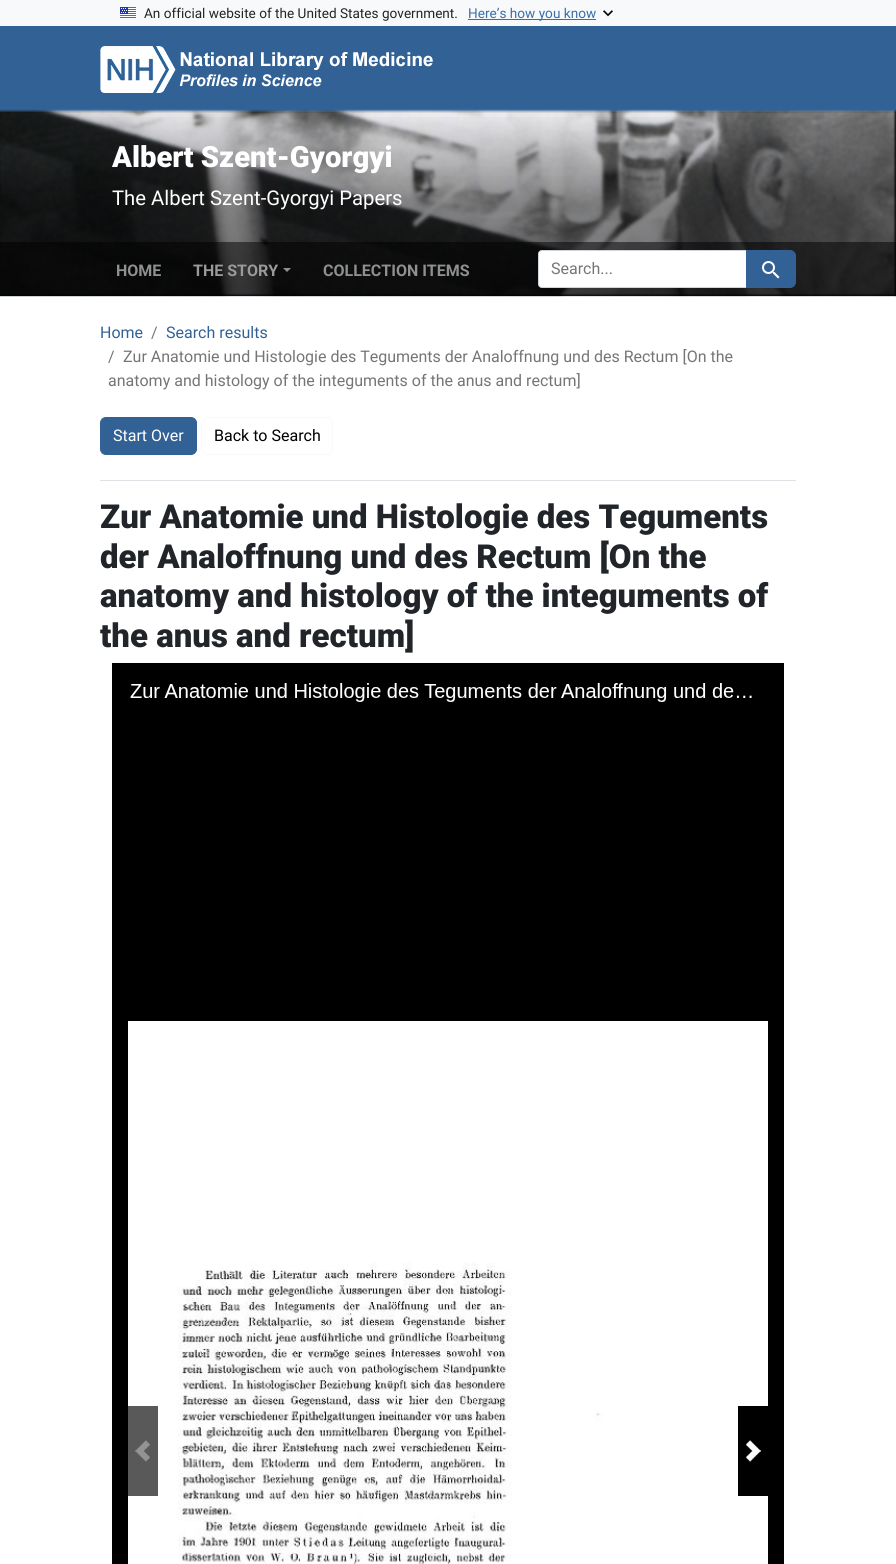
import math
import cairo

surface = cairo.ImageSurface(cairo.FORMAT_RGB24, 896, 1564)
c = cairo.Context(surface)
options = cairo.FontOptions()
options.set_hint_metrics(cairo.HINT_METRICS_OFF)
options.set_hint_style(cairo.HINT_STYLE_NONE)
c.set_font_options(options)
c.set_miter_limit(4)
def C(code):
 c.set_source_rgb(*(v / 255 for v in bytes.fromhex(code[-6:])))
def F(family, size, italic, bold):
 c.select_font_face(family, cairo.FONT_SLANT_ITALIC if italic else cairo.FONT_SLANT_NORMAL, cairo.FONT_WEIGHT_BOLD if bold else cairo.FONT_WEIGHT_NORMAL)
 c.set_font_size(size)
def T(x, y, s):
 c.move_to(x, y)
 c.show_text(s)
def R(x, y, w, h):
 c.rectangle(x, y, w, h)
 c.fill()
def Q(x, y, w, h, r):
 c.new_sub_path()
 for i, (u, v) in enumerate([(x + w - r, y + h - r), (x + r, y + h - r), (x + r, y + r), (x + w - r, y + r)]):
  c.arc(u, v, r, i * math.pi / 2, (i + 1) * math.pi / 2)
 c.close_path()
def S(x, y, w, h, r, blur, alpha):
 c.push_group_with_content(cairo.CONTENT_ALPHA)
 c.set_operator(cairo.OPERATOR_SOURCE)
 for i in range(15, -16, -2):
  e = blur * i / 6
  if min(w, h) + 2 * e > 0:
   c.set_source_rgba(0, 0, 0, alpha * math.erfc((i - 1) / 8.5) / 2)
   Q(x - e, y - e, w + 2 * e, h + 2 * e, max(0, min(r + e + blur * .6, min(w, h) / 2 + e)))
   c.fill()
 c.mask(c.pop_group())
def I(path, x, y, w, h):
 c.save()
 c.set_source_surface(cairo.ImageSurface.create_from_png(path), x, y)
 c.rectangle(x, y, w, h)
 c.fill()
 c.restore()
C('ffffff')
c.paint()
C('f8f9fa')
R(0,0,896,26)
I('1.png',120,7,16,11)
F('Roboto',13.6,0,0)
C('212529')
T(144,18,'An official website of the United States government.')
C('376faa')
R(468,19,128,1)
T(468,18,'Here’s how you know')
I('2.png',603,10,10,7)
C('326295')
R(0,26,896,86)
I('3.png',100,46,333,47)
C('000000')
R(0,112,896,184)
C('dee2e6')
R(0,296,896,1)
I('4.png',0,109,896,188)
C('000000')
S(895,111,1,184,0,1,1)
gradient = cairo.LinearGradient(448,112,448,296)
gradient.add_color_stop_rgba(0,0,0,0,0)
gradient.add_color_stop_rgba(.5,0,0,0,.4)
gradient.add_color_stop_rgba(1,0,0,0,.5)
c.set_source(gradient)
R(0,117,896,179)
F('Roboto Black',29.25,0,0)
C('ffffff')
T(112,167,'Albert Szent-Gyorgyi')
F('Roboto',20.3,0,0)
T(112,205,'The Albert Szent-Gyorgyi Papers')
c.set_source_rgba(0,0,0,0.5)
R(0,242,896,54)
F('Roboto',16,0,1)
C('8f9090')
T(116,276,'HOME')
C('9a9a9a')
T(193,276,'THE STORY')
C('929292')
c.new_path()
c.move_to(283,268)
c.line_to(291,268)
c.line_to(287,272)
c.close_path()
c.fill()
C('8f9090')
T(323,276,'COLLECTION ITEMS')
C('ffffff')
c.new_path()
c.move_to(542,250.5)
c.line_to(746.5,250.5)
c.line_to(746.5,287.5)
c.line_to(542,287.5)
c.curve_to(540,287.5,538.5,286,538.5,284)
c.line_to(538.5,254)
c.curve_to(538.5,252,540,250.5,542,250.5)
c.close_path()
c.fill_preserve()
C('ced4da')
c.set_line_width(1)
c.stroke()
F('Roboto',16,0,0)
C('757575')
T(551,274,'Search...')
C('326295')
c.new_path()
c.move_to(746.5,250.5)
c.line_to(790,250.5)
c.curve_to(793,250.5,795.5,253,795.5,256)
c.line_to(795.5,282)
c.curve_to(795.5,285,793,287.5,790,287.5)
c.line_to(746.5,287.5)
c.close_path()
c.fill_preserve()
c.stroke()
I('5.png',762,261,18,18)
T(100,338,'Home')
C('757575')
T(151,338,'/')
C('326295')
T(166,338,'Search results')
C('757575')
T(108,362,'/')
T(123,362,'Zur Anatomie und Histologie des Teguments der Analoffnung und des Rectum [On the')
T(108,386,'anatomy and histology of the integuments of the anus and rectum]')
C('326295')
Q(100.5,417.5,96,37,5.5)
c.fill_preserve()
c.stroke()
C('ffffff')
T(113,441,'Start Over')
Q(201.5,417.5,131,37,5.5)
C('f8f9fa')
c.stroke()
C('000000')
T(214,441,'Back to Search')
C('dee2e6')
R(100,480,696,1)
F('Roboto Black',33,0,0)
C('212529')
T(100,528,'Zur Anatomie und Histologie des Teguments')
T(100,568,'der Analoffnung und des Rectum [On the')
T(100,607,'anatomy and histology of the integuments of')
T(100,647,'the anus and rectum]')
I('6.png',112,663,672,901)
surface.write_to_png('o.png')
